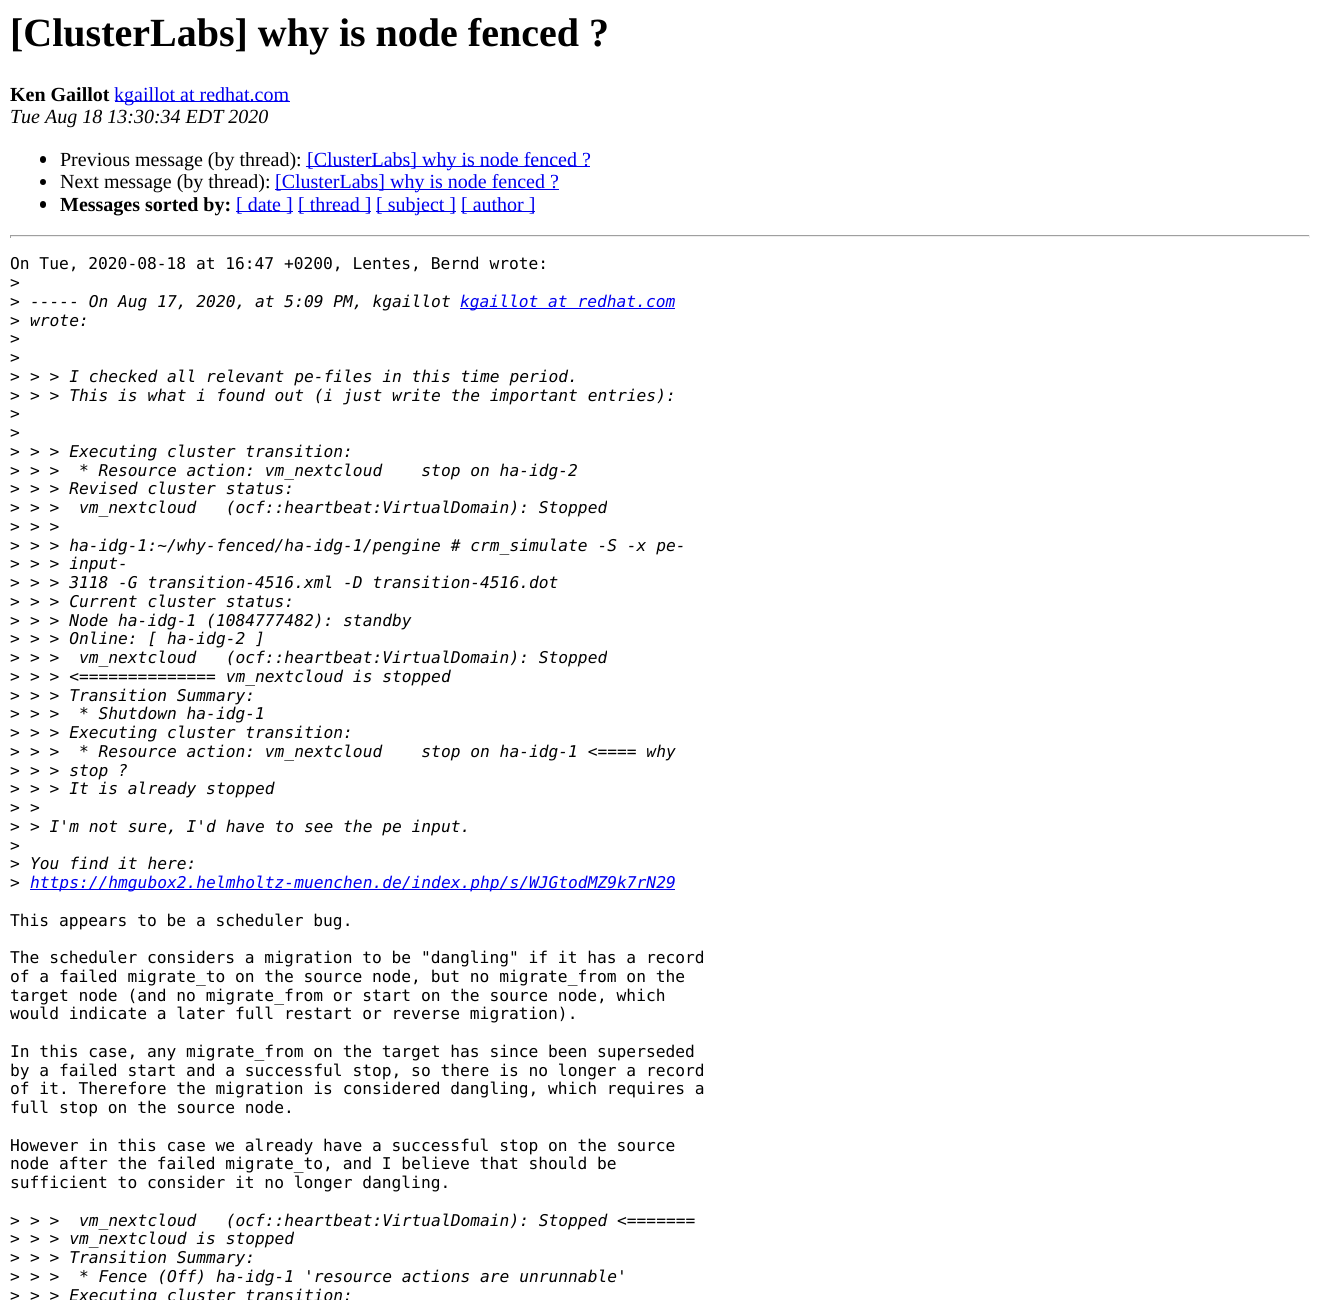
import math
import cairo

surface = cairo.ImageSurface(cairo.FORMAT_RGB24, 1319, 1300)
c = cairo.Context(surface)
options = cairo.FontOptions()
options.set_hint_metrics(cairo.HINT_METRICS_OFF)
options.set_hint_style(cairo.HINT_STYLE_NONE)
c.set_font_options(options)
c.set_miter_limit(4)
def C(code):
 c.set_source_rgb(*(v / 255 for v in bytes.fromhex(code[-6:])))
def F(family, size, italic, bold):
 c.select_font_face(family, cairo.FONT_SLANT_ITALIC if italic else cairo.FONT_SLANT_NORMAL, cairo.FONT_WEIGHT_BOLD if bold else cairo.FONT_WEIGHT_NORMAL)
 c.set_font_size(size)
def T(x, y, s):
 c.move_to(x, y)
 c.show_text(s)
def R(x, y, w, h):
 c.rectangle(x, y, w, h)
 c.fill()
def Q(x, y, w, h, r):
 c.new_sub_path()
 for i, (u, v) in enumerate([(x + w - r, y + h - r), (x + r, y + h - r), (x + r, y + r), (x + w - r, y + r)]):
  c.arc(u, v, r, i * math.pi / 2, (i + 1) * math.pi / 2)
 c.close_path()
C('ffffff')
c.paint()
F('Liberation Serif',40,0,1)
C('000000')
T(10,46,'[ClusterLabs] why is node fenced ?')
F('Liberation Serif',20,0,1)
T(10,101,'Ken Gaillot')
C('0000ee')
R(115,101,175,1)
F('Liberation Serif',20,0,0)
T(114,101,'kgaillot at redhat.com')
F('Liberation Serif',20,1,0)
C('000000')
T(10,123,'Tue Aug 18 13:30:34 EDT 2020')
Q(40,156,6,7,3)
c.fill()
F('Liberation Serif',20,0,0)
T(60,166,'Previous message (by thread):')
C('0000ee')
R(306,166,284,1)
T(307,166,'[ClusterLabs] why is node fenced ?')
C('000000')
c.new_path()
c.arc(43,182,3,0,2 * math.pi)
c.fill()
T(60,188,'Next message (by thread):')
C('0000ee')
R(275,189,284,1)
T(275,188,'[ClusterLabs] why is node fenced ?')
C('000000')
Q(40,201,6,7,3)
c.fill()
F('Liberation Serif',20,0,1)
T(60,211,'Messages sorted by:')
C('0000ee')
R(236,211,57,1)
F('Liberation Serif',20,0,0)
T(236,211,'[ date ]')
R(298,211,73,1)
T(298,211,'[ thread ]')
R(376,211,80,1)
T(376,211,'[ subject ]')
R(461,211,74,1)
T(461,211,'[ author ]')
C('9f9f9f')
R(10,235,1300,1)
C('eeeeee')
R(1309,235,1,3)
R(10,236,1300,1)
C('9f9f9f')
R(10,235,1,3)
F('DejaVu Sans Mono',16.25,0,0)
C('000000')
T(10,269,'On Tue, 2020-08-18 at 16:47 +0200, Lentes, Bernd wrote:')
T(10,288,'>')
T(10,307,'>')
F('DejaVu Sans Mono',16.25,1,0)
T(30,307,'----- On Aug 17, 2020, at 5:09 PM, kgaillot')
C('0000ee')
R(460,308,215,1)
T(460,307,'kgaillot at redhat.com')
F('DejaVu Sans Mono',16.25,0,0)
C('000000')
T(10,326,'>')
F('DejaVu Sans Mono',16.25,1,0)
T(30,326,'wrote:')
F('DejaVu Sans Mono',16.25,0,0)
T(10,344,'>')
T(10,363,'>')
T(10,382,'>')
F('DejaVu Sans Mono',16.25,1,0)
T(30,382,'> > I checked all relevant pe-files in this time period.')
F('DejaVu Sans Mono',16.25,0,0)
T(10,401,'>')
F('DejaVu Sans Mono',16.25,1,0)
T(30,401,'> > This is what i found out (i just write the important entries):')
F('DejaVu Sans Mono',16.25,0,0)
T(10,419,'>')
T(10,438,'>')
T(10,457,'>')
F('DejaVu Sans Mono',16.25,1,0)
T(30,457,'> > Executing cluster transition:')
F('DejaVu Sans Mono',16.25,0,0)
T(10,476,'>')
F('DejaVu Sans Mono',16.25,1,0)
T(30,476,'> >  * Resource action: vm_nextcloud    stop on ha-idg-2')
F('DejaVu Sans Mono',16.25,0,0)
T(10,494,'>')
F('DejaVu Sans Mono',16.25,1,0)
T(30,494,'> > Revised cluster status:')
F('DejaVu Sans Mono',16.25,0,0)
T(10,513,'>')
F('DejaVu Sans Mono',16.25,1,0)
T(30,513,'> >  vm_nextcloud   (ocf::heartbeat:VirtualDomain): Stopped')
F('DejaVu Sans Mono',16.25,0,0)
T(10,532,'>')
F('DejaVu Sans Mono',16.25,1,0)
T(30,532,'> >')
F('DejaVu Sans Mono',16.25,0,0)
T(10,551,'>')
F('DejaVu Sans Mono',16.25,1,0)
T(30,551,'> > ha-idg-1:~/why-fenced/ha-idg-1/pengine # crm_simulate -S -x pe-')
F('DejaVu Sans Mono',16.25,0,0)
T(10,569,'>')
F('DejaVu Sans Mono',16.25,1,0)
T(30,569,'> > input-')
F('DejaVu Sans Mono',16.25,0,0)
T(10,588,'>')
F('DejaVu Sans Mono',16.25,1,0)
T(30,588,'> > 3118 -G transition-4516.xml -D transition-4516.dot')
F('DejaVu Sans Mono',16.25,0,0)
T(10,607,'>')
F('DejaVu Sans Mono',16.25,1,0)
T(30,607,'> > Current cluster status:')
F('DejaVu Sans Mono',16.25,0,0)
T(10,626,'>')
F('DejaVu Sans Mono',16.25,1,0)
T(30,626,'> > Node ha-idg-1 (1084777482): standby')
F('DejaVu Sans Mono',16.25,0,0)
T(10,644,'>')
F('DejaVu Sans Mono',16.25,1,0)
T(30,644,'> > Online: [ ha-idg-2 ]')
F('DejaVu Sans Mono',16.25,0,0)
T(10,663,'>')
F('DejaVu Sans Mono',16.25,1,0)
T(30,663,'> >  vm_nextcloud   (ocf::heartbeat:VirtualDomain): Stopped')
F('DejaVu Sans Mono',16.25,0,0)
T(10,682,'>')
F('DejaVu Sans Mono',16.25,1,0)
T(30,682,'> > <============== vm_nextcloud is stopped')
F('DejaVu Sans Mono',16.25,0,0)
T(10,701,'>')
F('DejaVu Sans Mono',16.25,1,0)
T(30,701,'> > Transition Summary:')
F('DejaVu Sans Mono',16.25,0,0)
T(10,719,'>')
F('DejaVu Sans Mono',16.25,1,0)
T(30,719,'> >  * Shutdown ha-idg-1')
F('DejaVu Sans Mono',16.25,0,0)
T(10,738,'>')
F('DejaVu Sans Mono',16.25,1,0)
T(30,738,'> > Executing cluster transition:')
F('DejaVu Sans Mono',16.25,0,0)
T(10,757,'>')
F('DejaVu Sans Mono',16.25,1,0)
T(30,757,'> >  * Resource action: vm_nextcloud    stop on ha-idg-1 <==== why')
F('DejaVu Sans Mono',16.25,0,0)
T(10,776,'>')
F('DejaVu Sans Mono',16.25,1,0)
T(30,776,'> > stop ?')
F('DejaVu Sans Mono',16.25,0,0)
T(10,794,'>')
F('DejaVu Sans Mono',16.25,1,0)
T(30,794,'> > It is already stopped')
F('DejaVu Sans Mono',16.25,0,0)
T(10,813,'>')
F('DejaVu Sans Mono',16.25,1,0)
T(30,813,'>')
F('DejaVu Sans Mono',16.25,0,0)
T(10,832,'>')
F('DejaVu Sans Mono',16.25,1,0)
T(30,832,'> I\'m not sure, I\'d have to see the pe input.')
F('DejaVu Sans Mono',16.25,0,0)
T(10,851,'>')
T(10,869,'>')
F('DejaVu Sans Mono',16.25,1,0)
T(30,869,'You find it here:')
F('DejaVu Sans Mono',16.25,0,0)
T(10,888,'>')
C('0000ee')
R(30,889,645,1)
F('DejaVu Sans Mono',16.25,1,0)
T(30,888,'https://hmgubox2.helmholtz-muenchen.de/index.php/s/WJGtodMZ9k7rN29')
F('DejaVu Sans Mono',16.25,0,0)
C('000000')
T(10,926,'This appears to be a scheduler bug.')
T(10,963,'The scheduler considers a migration to be "dangling" if it has a record')
T(10,982,'of a failed migrate_to on the source node, but no migrate_from on the')
T(10,1001,'target node (and no migrate_from or start on the source node, which')
T(10,1019,'would indicate a later full restart or reverse migration).')
T(10,1057,'In this case, any migrate_from on the target has since been superseded')
T(10,1076,'by a failed start and a successful stop, so there is no longer a record')
T(10,1094,'of it. Therefore the migration is considered dangling, which requires a')
T(10,1113,'full stop on the source node.')
T(10,1151,'However in this case we already have a successful stop on the source')
T(10,1169,'node after the failed migrate_to, and I believe that should be')
T(10,1188,'sufficient to consider it no longer dangling.')
T(10,1226,'>')
F('DejaVu Sans Mono',16.25,1,0)
T(30,1226,'> >  vm_nextcloud   (ocf::heartbeat:VirtualDomain): Stopped <=======')
F('DejaVu Sans Mono',16.25,0,0)
T(10,1244,'>')
F('DejaVu Sans Mono',16.25,1,0)
T(30,1244,'> > vm_nextcloud is stopped')
F('DejaVu Sans Mono',16.25,0,0)
T(10,1263,'>')
F('DejaVu Sans Mono',16.25,1,0)
T(30,1263,'> > Transition Summary:')
F('DejaVu Sans Mono',16.25,0,0)
T(10,1282,'>')
F('DejaVu Sans Mono',16.25,1,0)
T(30,1282,'> >  * Fence (Off) ha-idg-1 \'resource actions are unrunnable\'')
F('DejaVu Sans Mono',16.25,0,0)
T(10,1301,'>')
F('DejaVu Sans Mono',16.25,1,0)
T(30,1301,'> > Executing cluster transition:')
surface.write_to_png('o.png')
